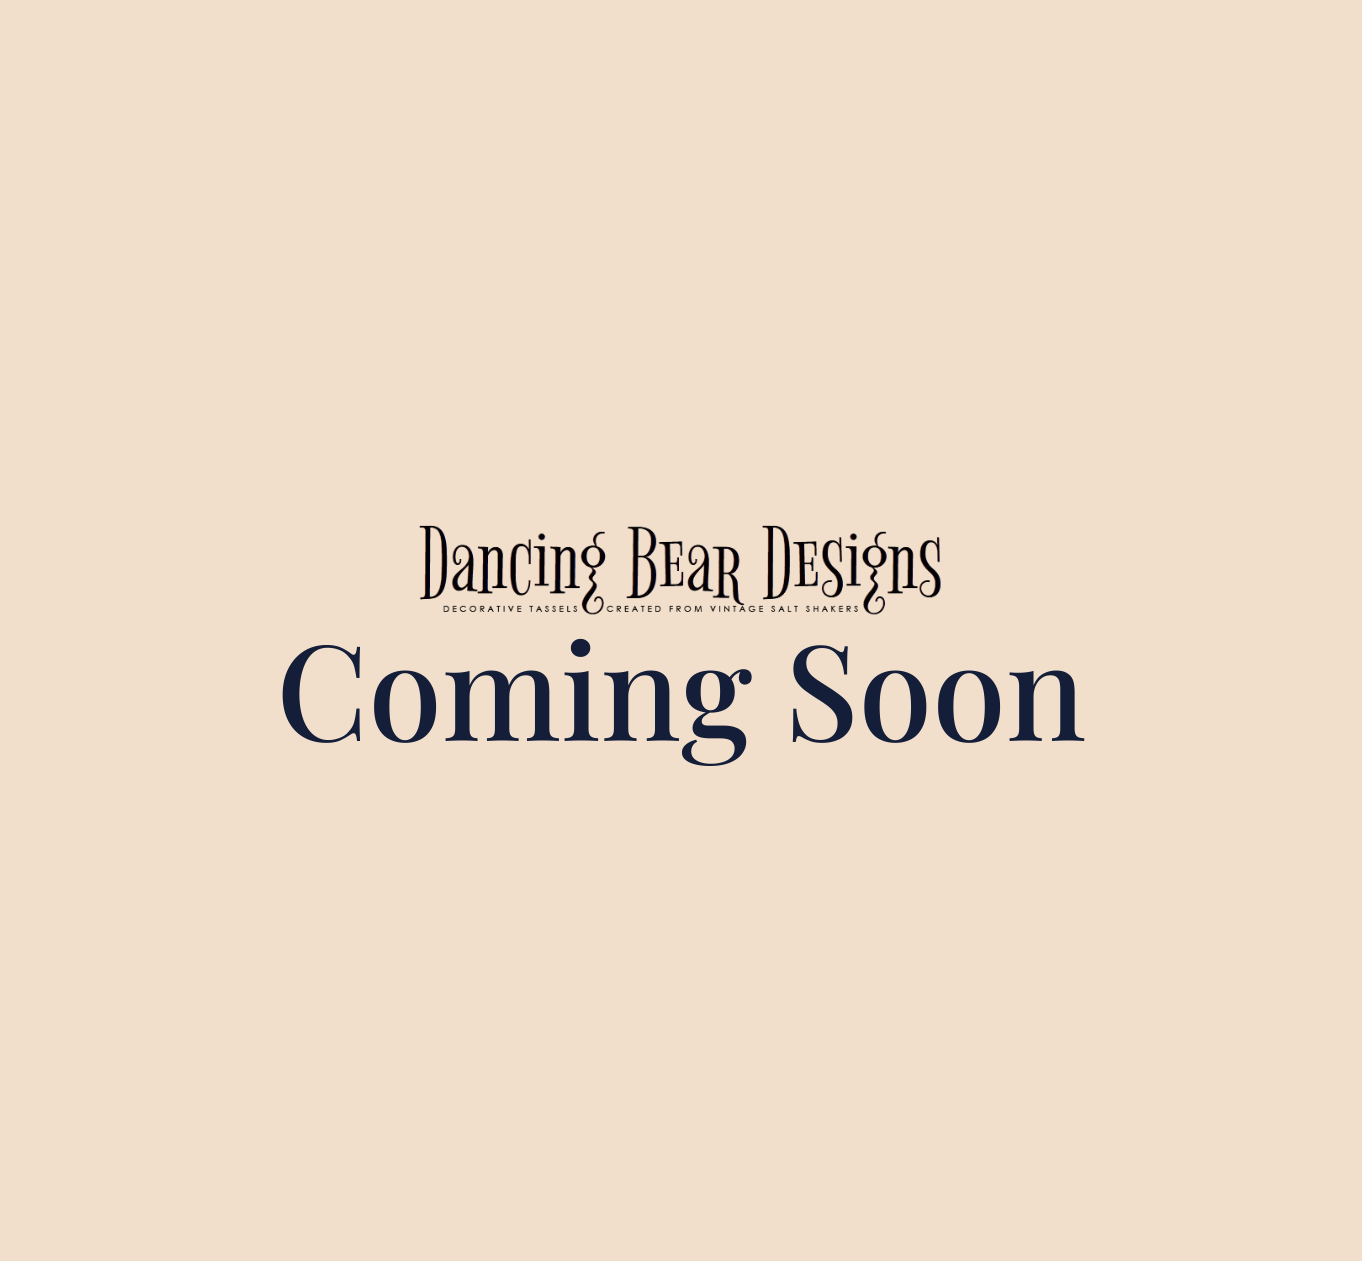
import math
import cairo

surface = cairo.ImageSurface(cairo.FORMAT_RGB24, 1362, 1261)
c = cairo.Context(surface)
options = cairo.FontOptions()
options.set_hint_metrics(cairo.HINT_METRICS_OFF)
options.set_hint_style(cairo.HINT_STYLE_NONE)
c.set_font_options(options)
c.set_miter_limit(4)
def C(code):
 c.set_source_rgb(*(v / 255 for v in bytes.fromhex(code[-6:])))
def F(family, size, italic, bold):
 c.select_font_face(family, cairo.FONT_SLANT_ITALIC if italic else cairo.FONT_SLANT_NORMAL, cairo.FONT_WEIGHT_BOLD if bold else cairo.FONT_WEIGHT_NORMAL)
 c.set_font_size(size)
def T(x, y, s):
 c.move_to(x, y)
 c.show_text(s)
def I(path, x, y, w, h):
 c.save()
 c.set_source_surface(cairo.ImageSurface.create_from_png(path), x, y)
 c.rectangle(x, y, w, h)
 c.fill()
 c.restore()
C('f1dfcb')
c.paint()
I('1.png',419,525,522,90)
F('Playfair Display Medium',133,0,0)
C('141e39')
T(276,741,'Coming Soon')
surface.write_to_png('o.png')
